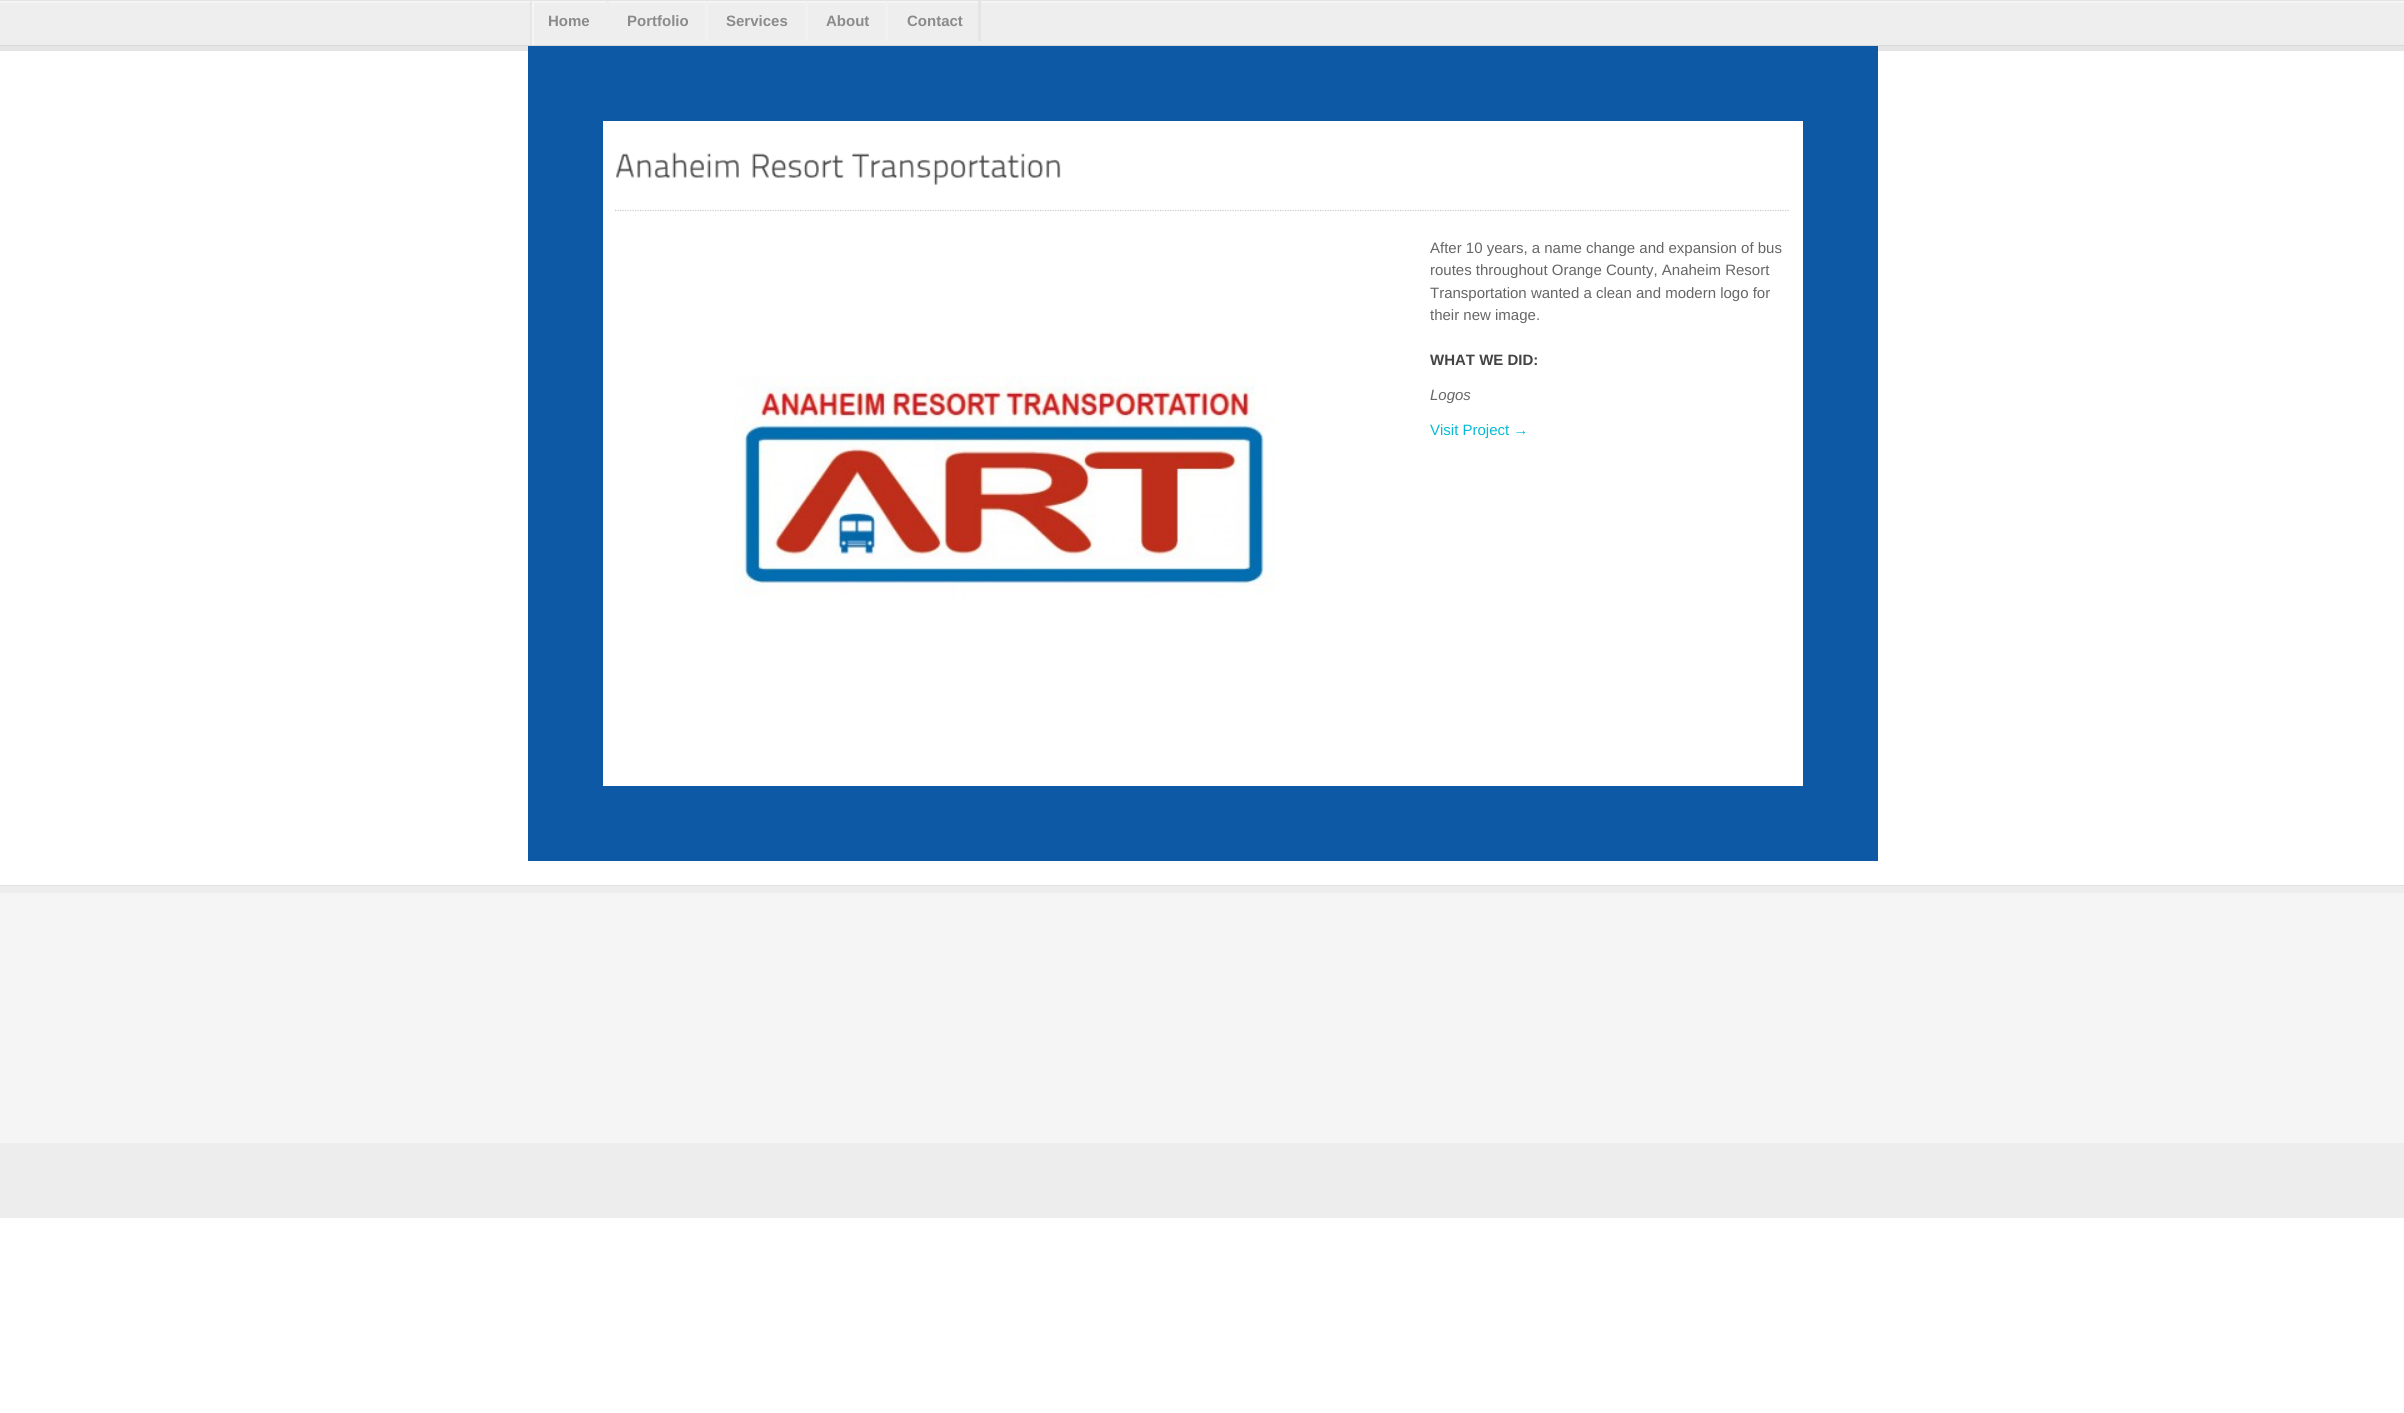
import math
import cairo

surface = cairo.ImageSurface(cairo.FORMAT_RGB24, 2404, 1413)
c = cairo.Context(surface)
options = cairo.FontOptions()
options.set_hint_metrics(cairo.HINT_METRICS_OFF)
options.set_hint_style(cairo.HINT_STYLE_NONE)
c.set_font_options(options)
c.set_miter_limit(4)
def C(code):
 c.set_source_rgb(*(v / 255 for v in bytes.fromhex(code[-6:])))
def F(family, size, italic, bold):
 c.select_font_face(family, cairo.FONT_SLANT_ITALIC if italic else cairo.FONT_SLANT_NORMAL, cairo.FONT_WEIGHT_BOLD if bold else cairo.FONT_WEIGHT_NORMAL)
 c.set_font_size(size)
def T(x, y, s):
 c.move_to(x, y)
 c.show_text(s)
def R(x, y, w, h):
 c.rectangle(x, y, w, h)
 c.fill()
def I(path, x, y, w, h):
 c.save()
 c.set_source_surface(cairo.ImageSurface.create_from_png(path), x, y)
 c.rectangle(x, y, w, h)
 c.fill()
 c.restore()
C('ffffff')
c.paint()
C('e5e5e5')
R(0,46,2404,5)
C('eeeeee')
R(0,1,2404,44)
I('1.png',0,1,2404,2)
C('e4e4e4')
R(0,0,2404,1)
C('d8d8d8')
R(0,45,2404,1)
I('2.png',530,1,4,44)
C('eeeeee')
R(606,1,3,2)
F('Liberation Sans',15,0,1)
C('8c8b8b')
T(548,26,'Home')
C('f1f1f1')
R(705,1,3,40)
C('8c8b8b')
T(627,26,'Portfolio')
C('f1f1f1')
R(805,1,3,40)
C('8c8b8b')
T(726,26,'Services')
C('f1f1f1')
R(885,1,3,40)
C('8c8b8b')
T(826,26,'About')
C('e5e5e5')
R(978,1,3,40)
C('8c8b8b')
T(907,26,'Contact')
c.rectangle(565.5,83.5,1275,740)
C('0d59a5')
c.set_line_width(75)
c.stroke()
c.new_path()
c.move_to(615,210.5)
c.line_to(1790,210.5)
C('cccccc')
c.set_line_width(1.2)
c.set_dash([1.25,1.25])
c.stroke()
I('3.png',616,152,123,26)
I('4.png',752,153,92,25)
I('5.png',851,153,210,32)
F('Liberation Sans',15,0,0)
C('666666')
T(1430,253,'After 10 years, a name change and expansion of bus')
T(1430,275,'routes throughout Orange County, Anaheim Resort')
T(1430,298,'Transportation wanted a clean and modern logo for')
T(1430,320,'their new image.')
F('Liberation Sans',15,0,1)
C('444444')
T(1430,365,'WHAT WE DID:')
F('Liberation Sans',15,1,0)
C('666666')
T(1430,400,'Logos')
F('Liberation Sans',15,0,0)
C('06bad5')
T(1430,435,'Visit Project →')
I('6.png',735,376,540,221)
C('e0e0e0')
R(0,885,2404,1)
C('f5f5f5')
R(0,893,2404,250)
C('ededed')
R(0,886,2404,7)
R(0,1143,2404,75)
surface.write_to_png('o.png')
